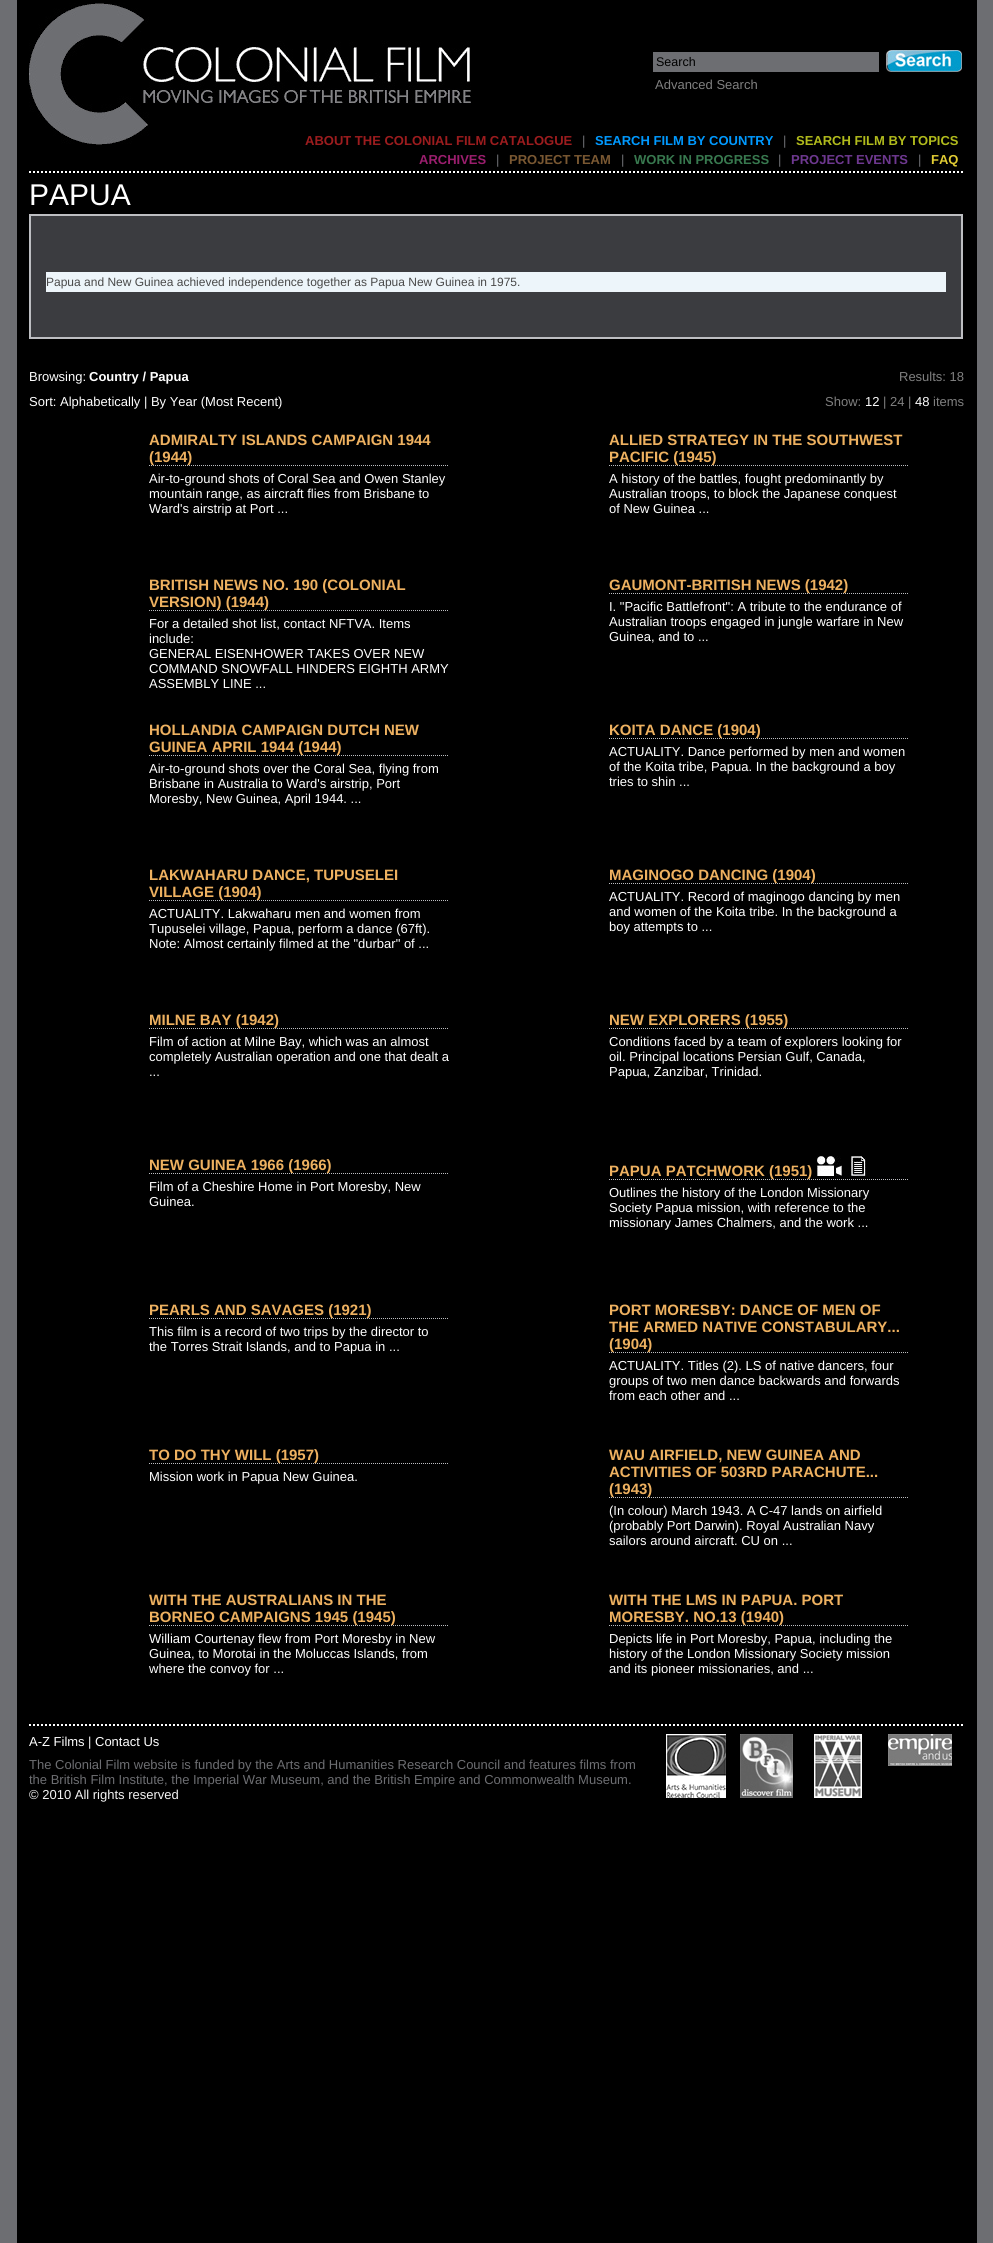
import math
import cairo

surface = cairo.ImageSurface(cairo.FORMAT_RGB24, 993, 2243)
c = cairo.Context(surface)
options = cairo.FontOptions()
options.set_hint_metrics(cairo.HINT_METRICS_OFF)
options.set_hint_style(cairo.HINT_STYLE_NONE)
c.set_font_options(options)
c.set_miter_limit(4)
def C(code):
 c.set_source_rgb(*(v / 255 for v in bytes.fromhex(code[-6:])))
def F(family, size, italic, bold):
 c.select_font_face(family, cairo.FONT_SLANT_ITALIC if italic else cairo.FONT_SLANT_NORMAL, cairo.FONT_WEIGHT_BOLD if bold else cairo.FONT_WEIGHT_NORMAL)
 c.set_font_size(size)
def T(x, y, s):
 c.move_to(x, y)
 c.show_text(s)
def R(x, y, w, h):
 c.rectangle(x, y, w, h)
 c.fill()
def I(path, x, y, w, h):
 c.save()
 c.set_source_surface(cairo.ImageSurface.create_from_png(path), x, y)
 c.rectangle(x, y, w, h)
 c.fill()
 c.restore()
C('6d6e72')
c.paint()
C('000000')
R(17,0,960,2243)
c.new_path()
c.move_to(29,172)
c.line_to(965,172)
C('ffffff')
c.set_dash([2,2])
c.stroke()
I('1.png',29,3,442,142)
C('6d6e72')
R(653,52,226,20)
F('Liberation Sans',12.5,0,0)
C('000000')
T(656,66,'Search')
I('2.png',886,50,76,22)
F('Liberation Sans',13,0,0)
C('808080')
T(655,89,'Advanced Search')
F('Liberation Sans',13,0,1)
C('9c1c1e')
T(305,145,'ABOUT THE COLONIAL FILM CATALOGUE')
F('Liberation Sans',13,0,0)
C('6d6e72')
T(582,145,'|')
F('Liberation Sans',13,0,1)
C('0099ff')
T(595,145,'SEARCH FILM BY COUNTRY')
F('Liberation Sans',13,0,0)
C('6d6e72')
T(783,145,'|')
F('Liberation Sans',13,0,1)
C('b1bb1c')
T(796,145,'SEARCH FILM BY TOPICS')
C('9b1e6e')
T(419,164,'ARCHIVES')
F('Liberation Sans',13,0,0)
C('6d6e72')
T(496,164,'|')
F('Liberation Sans',13,0,1)
C('7a5832')
T(509,164,'PROJECT TEAM')
F('Liberation Sans',13,0,0)
C('6d6e72')
T(621,164,'|')
F('Liberation Sans',13,0,1)
C('38794f')
T(634,164,'WORK IN PROGRESS')
F('Liberation Sans',13,0,0)
C('6d6e72')
T(778,164,'|')
F('Liberation Sans',13,0,1)
C('6e3890')
T(791,164,'PROJECT EVENTS')
F('Liberation Sans',13,0,0)
C('6d6e72')
T(918,164,'|')
F('Liberation Sans',13,0,1)
C('e1cc33')
T(931,164,'FAQ')
F('Liberation Sans',30,0,0)
C('ffffff')
T(29,205,'PAPUA')
C('3b3c40')
c.rectangle(30,215,932,123)
c.fill_preserve()
C('bdbec2')
c.set_dash([])
c.stroke()
C('edf5fa')
R(46,272,900,20)
F('Liberation Sans',12,0,0)
C('494949')
T(46,286,'Papua and New Guinea achieved independence together as Papua New Guinea in 1975.')
F('Liberation Sans',13,0,0)
C('ffffff')
T(29,381,'Browsing:')
F('Liberation Sans',13,0,1)
T(89,381,'Country / Papua')
F('Liberation Sans',13,0,0)
C('808080')
T(899,381,'Results: 18')
C('ffffff')
T(29,406,'Sort: Alphabetically | By Year (Most Recent)')
C('808080')
T(825,406,'Show:')
C('ffffff')
T(865,406,'12')
C('808080')
T(883,406,'| 24 |')
C('ffffff')
T(915,406,'48')
C('808080')
T(933,406,'items')
c.new_path()
c.move_to(149,465.5)
c.line_to(449,465.5)
C('bdbec2')
c.set_line_width(1)
c.set_dash([1,1])
c.stroke()
F('Liberation Sans',15,0,1)
C('eeb160')
T(149,445,'ADMIRALTY ISLANDS CAMPAIGN 1944')
T(149,462,'(1944)')
F('Liberation Sans',13,0,0)
C('ffffff')
T(149,483,'Air-to-ground shots of Coral Sea and Owen Stanley')
T(149,498,'mountain range, as aircraft flies from Brisbane to')
T(149,513,'Ward\'s airstrip at Port ...')
c.new_path()
c.move_to(609,465.5)
c.line_to(909,465.5)
C('bdbec2')
c.stroke()
F('Liberation Sans',15,0,1)
C('eeb160')
T(609,445,'ALLIED STRATEGY IN THE SOUTHWEST')
T(609,462,'PACIFIC (1945)')
F('Liberation Sans',13,0,0)
C('ffffff')
T(609,483,'A history of the battles, fought predominantly by')
T(609,498,'Australian troops, to block the Japanese conquest')
T(609,513,'of New Guinea ...')
c.new_path()
c.move_to(149,610.5)
c.line_to(449,610.5)
C('bdbec2')
c.stroke()
F('Liberation Sans',15,0,1)
C('eeb160')
T(149,590,'BRITISH NEWS NO. 190 (COLONIAL')
T(149,607,'VERSION) (1944)')
F('Liberation Sans',13,0,0)
C('ffffff')
T(149,628,'For a detailed shot list, contact NFTVA. Items')
T(149,643,'include:')
T(149,658,'GENERAL EISENHOWER TAKES OVER NEW')
T(149,673,'COMMAND SNOWFALL HINDERS EIGHTH ARMY')
T(149,688,'ASSEMBLY LINE ...')
c.new_path()
c.move_to(609,593.5)
c.line_to(909,593.5)
C('bdbec2')
c.stroke()
F('Liberation Sans',15,0,1)
C('eeb160')
T(609,590,'GAUMONT-BRITISH NEWS (1942)')
F('Liberation Sans',13,0,0)
C('ffffff')
T(609,611,'I. "Pacific Battlefront": A tribute to the endurance of')
T(609,626,'Australian troops engaged in jungle warfare in New')
T(609,641,'Guinea, and to ...')
c.new_path()
c.move_to(149,755.5)
c.line_to(449,755.5)
C('bdbec2')
c.stroke()
F('Liberation Sans',15,0,1)
C('eeb160')
T(149,735,'HOLLANDIA CAMPAIGN DUTCH NEW')
T(149,752,'GUINEA APRIL 1944 (1944)')
F('Liberation Sans',13,0,0)
C('ffffff')
T(149,773,'Air-to-ground shots over the Coral Sea, flying from')
T(149,788,'Brisbane in Australia to Ward\'s airstrip, Port')
T(149,803,'Moresby, New Guinea, April 1944. ...')
c.new_path()
c.move_to(609,738.5)
c.line_to(909,738.5)
C('bdbec2')
c.stroke()
F('Liberation Sans',15,0,1)
C('eeb160')
T(609,735,'KOITA DANCE (1904)')
F('Liberation Sans',13,0,0)
C('ffffff')
T(609,756,'ACTUALITY. Dance performed by men and women')
T(609,771,'of the Koita tribe, Papua. In the background a boy')
T(609,786,'tries to shin ...')
c.new_path()
c.move_to(149,900.5)
c.line_to(449,900.5)
C('bdbec2')
c.stroke()
F('Liberation Sans',15,0,1)
C('eeb160')
T(149,880,'LAKWAHARU DANCE, TUPUSELEI')
T(149,897,'VILLAGE (1904)')
F('Liberation Sans',13,0,0)
C('ffffff')
T(149,918,'ACTUALITY. Lakwaharu men and women from')
T(149,933,'Tupuselei village, Papua, perform a dance (67ft).')
T(149,948,'Note: Almost certainly filmed at the "durbar" of ...')
c.new_path()
c.move_to(609,883.5)
c.line_to(909,883.5)
C('bdbec2')
c.stroke()
F('Liberation Sans',15,0,1)
C('eeb160')
T(609,880,'MAGINOGO DANCING (1904)')
F('Liberation Sans',13,0,0)
C('ffffff')
T(609,901,'ACTUALITY. Record of maginogo dancing by men')
T(609,916,'and women of the Koita tribe. In the background a')
T(609,931,'boy attempts to ...')
c.new_path()
c.move_to(149,1028.5)
c.line_to(449,1028.5)
C('bdbec2')
c.stroke()
F('Liberation Sans',15,0,1)
C('eeb160')
T(149,1025,'MILNE BAY (1942)')
F('Liberation Sans',13,0,0)
C('ffffff')
T(149,1046,'Film of action at Milne Bay, which was an almost')
T(149,1061,'completely Australian operation and one that dealt a')
T(149,1076,'...')
c.new_path()
c.move_to(609,1028.5)
c.line_to(909,1028.5)
C('bdbec2')
c.stroke()
F('Liberation Sans',15,0,1)
C('eeb160')
T(609,1025,'NEW EXPLORERS (1955)')
F('Liberation Sans',13,0,0)
C('ffffff')
T(609,1046,'Conditions faced by a team of explorers looking for')
T(609,1061,'oil. Principal locations Persian Gulf, Canada,')
T(609,1076,'Papua, Zanzibar, Trinidad.')
c.new_path()
c.move_to(149,1173.5)
c.line_to(449,1173.5)
C('bdbec2')
c.stroke()
F('Liberation Sans',15,0,1)
C('eeb160')
T(149,1170,'NEW GUINEA 1966 (1966)')
F('Liberation Sans',13,0,0)
C('ffffff')
T(149,1191,'Film of a Cheshire Home in Port Moresby, New')
T(149,1206,'Guinea.')
c.new_path()
c.move_to(609,1179.5)
c.line_to(909,1179.5)
C('bdbec2')
c.stroke()
F('Liberation Sans',15,0,1)
C('eeb160')
T(609,1176,'PAPUA PATCHWORK (1951)')
I('3.png',817,1156,25,20)
I('4.png',851,1156,15,20)
F('Liberation Sans',13,0,0)
C('ffffff')
T(609,1197,'Outlines the history of the London Missionary')
T(609,1212,'Society Papua mission, with reference to the')
T(609,1227,'missionary James Chalmers, and the work ...')
c.new_path()
c.move_to(149,1318.5)
c.line_to(449,1318.5)
C('bdbec2')
c.stroke()
F('Liberation Sans',15,0,1)
C('eeb160')
T(149,1315,'PEARLS AND SAVAGES (1921)')
F('Liberation Sans',13,0,0)
C('ffffff')
T(149,1336,'This film is a record of two trips by the director to')
T(149,1351,'the Torres Strait Islands, and to Papua in ...')
c.new_path()
c.move_to(609,1352.5)
c.line_to(909,1352.5)
C('bdbec2')
c.stroke()
F('Liberation Sans',15,0,1)
C('eeb160')
T(609,1315,'PORT MORESBY: DANCE OF MEN OF')
T(609,1332,'THE ARMED NATIVE CONSTABULARY...')
T(609,1349,'(1904)')
F('Liberation Sans',13,0,0)
C('ffffff')
T(609,1370,'ACTUALITY. Titles (2). LS of native dancers, four')
T(609,1385,'groups of two men dance backwards and forwards')
T(609,1400,'from each other and ...')
c.new_path()
c.move_to(149,1463.5)
c.line_to(449,1463.5)
C('bdbec2')
c.stroke()
F('Liberation Sans',15,0,1)
C('eeb160')
T(149,1460,'TO DO THY WILL (1957)')
F('Liberation Sans',13,0,0)
C('ffffff')
T(149,1481,'Mission work in Papua New Guinea.')
c.new_path()
c.move_to(609,1497.5)
c.line_to(909,1497.5)
C('bdbec2')
c.stroke()
F('Liberation Sans',15,0,1)
C('eeb160')
T(609,1460,'WAU AIRFIELD, NEW GUINEA AND')
T(609,1477,'ACTIVITIES OF 503RD PARACHUTE...')
T(609,1494,'(1943)')
F('Liberation Sans',13,0,0)
C('ffffff')
T(609,1515,'(In colour) March 1943. A C-47 lands on airfield')
T(609,1530,'(probably Port Darwin). Royal Australian Navy')
T(609,1545,'sailors around aircraft. CU on ...')
c.new_path()
c.move_to(149,1625.5)
c.line_to(449,1625.5)
C('bdbec2')
c.stroke()
F('Liberation Sans',15,0,1)
C('eeb160')
T(149,1605,'WITH THE AUSTRALIANS IN THE')
T(149,1622,'BORNEO CAMPAIGNS 1945 (1945)')
F('Liberation Sans',13,0,0)
C('ffffff')
T(149,1643,'William Courtenay flew from Port Moresby in New')
T(149,1658,'Guinea, to Morotai in the Moluccas Islands, from')
T(149,1673,'where the convoy for ...')
c.new_path()
c.move_to(609,1625.5)
c.line_to(909,1625.5)
C('bdbec2')
c.stroke()
F('Liberation Sans',15,0,1)
C('eeb160')
T(609,1605,'WITH THE LMS IN PAPUA. PORT')
T(609,1622,'MORESBY. NO.13 (1940)')
F('Liberation Sans',13,0,0)
C('ffffff')
T(609,1643,'Depicts life in Port Moresby, Papua, including the')
T(609,1658,'history of the London Missionary Society mission')
T(609,1673,'and its pioneer missionaries, and ...')
c.new_path()
c.move_to(29,1725)
c.line_to(965,1725)
c.set_line_width(2)
c.set_dash([2,2])
c.stroke()
T(29,1746,'A-Z Films')
C('f5f5f5')
T(88,1746,'|')
C('ffffff')
T(95,1746,'Contact Us')
I('5.png',666,1734,60,64)
I('6.png',740,1734,53,64)
I('7.png',814,1734,48,64)
I('8.png',888,1734,64,32)
C('6d6e72')
T(29,1769,'The Colonial Film website is funded by the Arts and Humanities Research Council and features films from')
T(29,1784,'the British Film Institute, the Imperial War Museum, and the British Empire and Commonwealth Museum.')
c.save()
c.rectangle(29,1726,936,90)
c.clip()
C('f5f5f5')
T(29,1799,'© 2010 All rights reserved')
c.restore()
surface.write_to_png('o.png')
